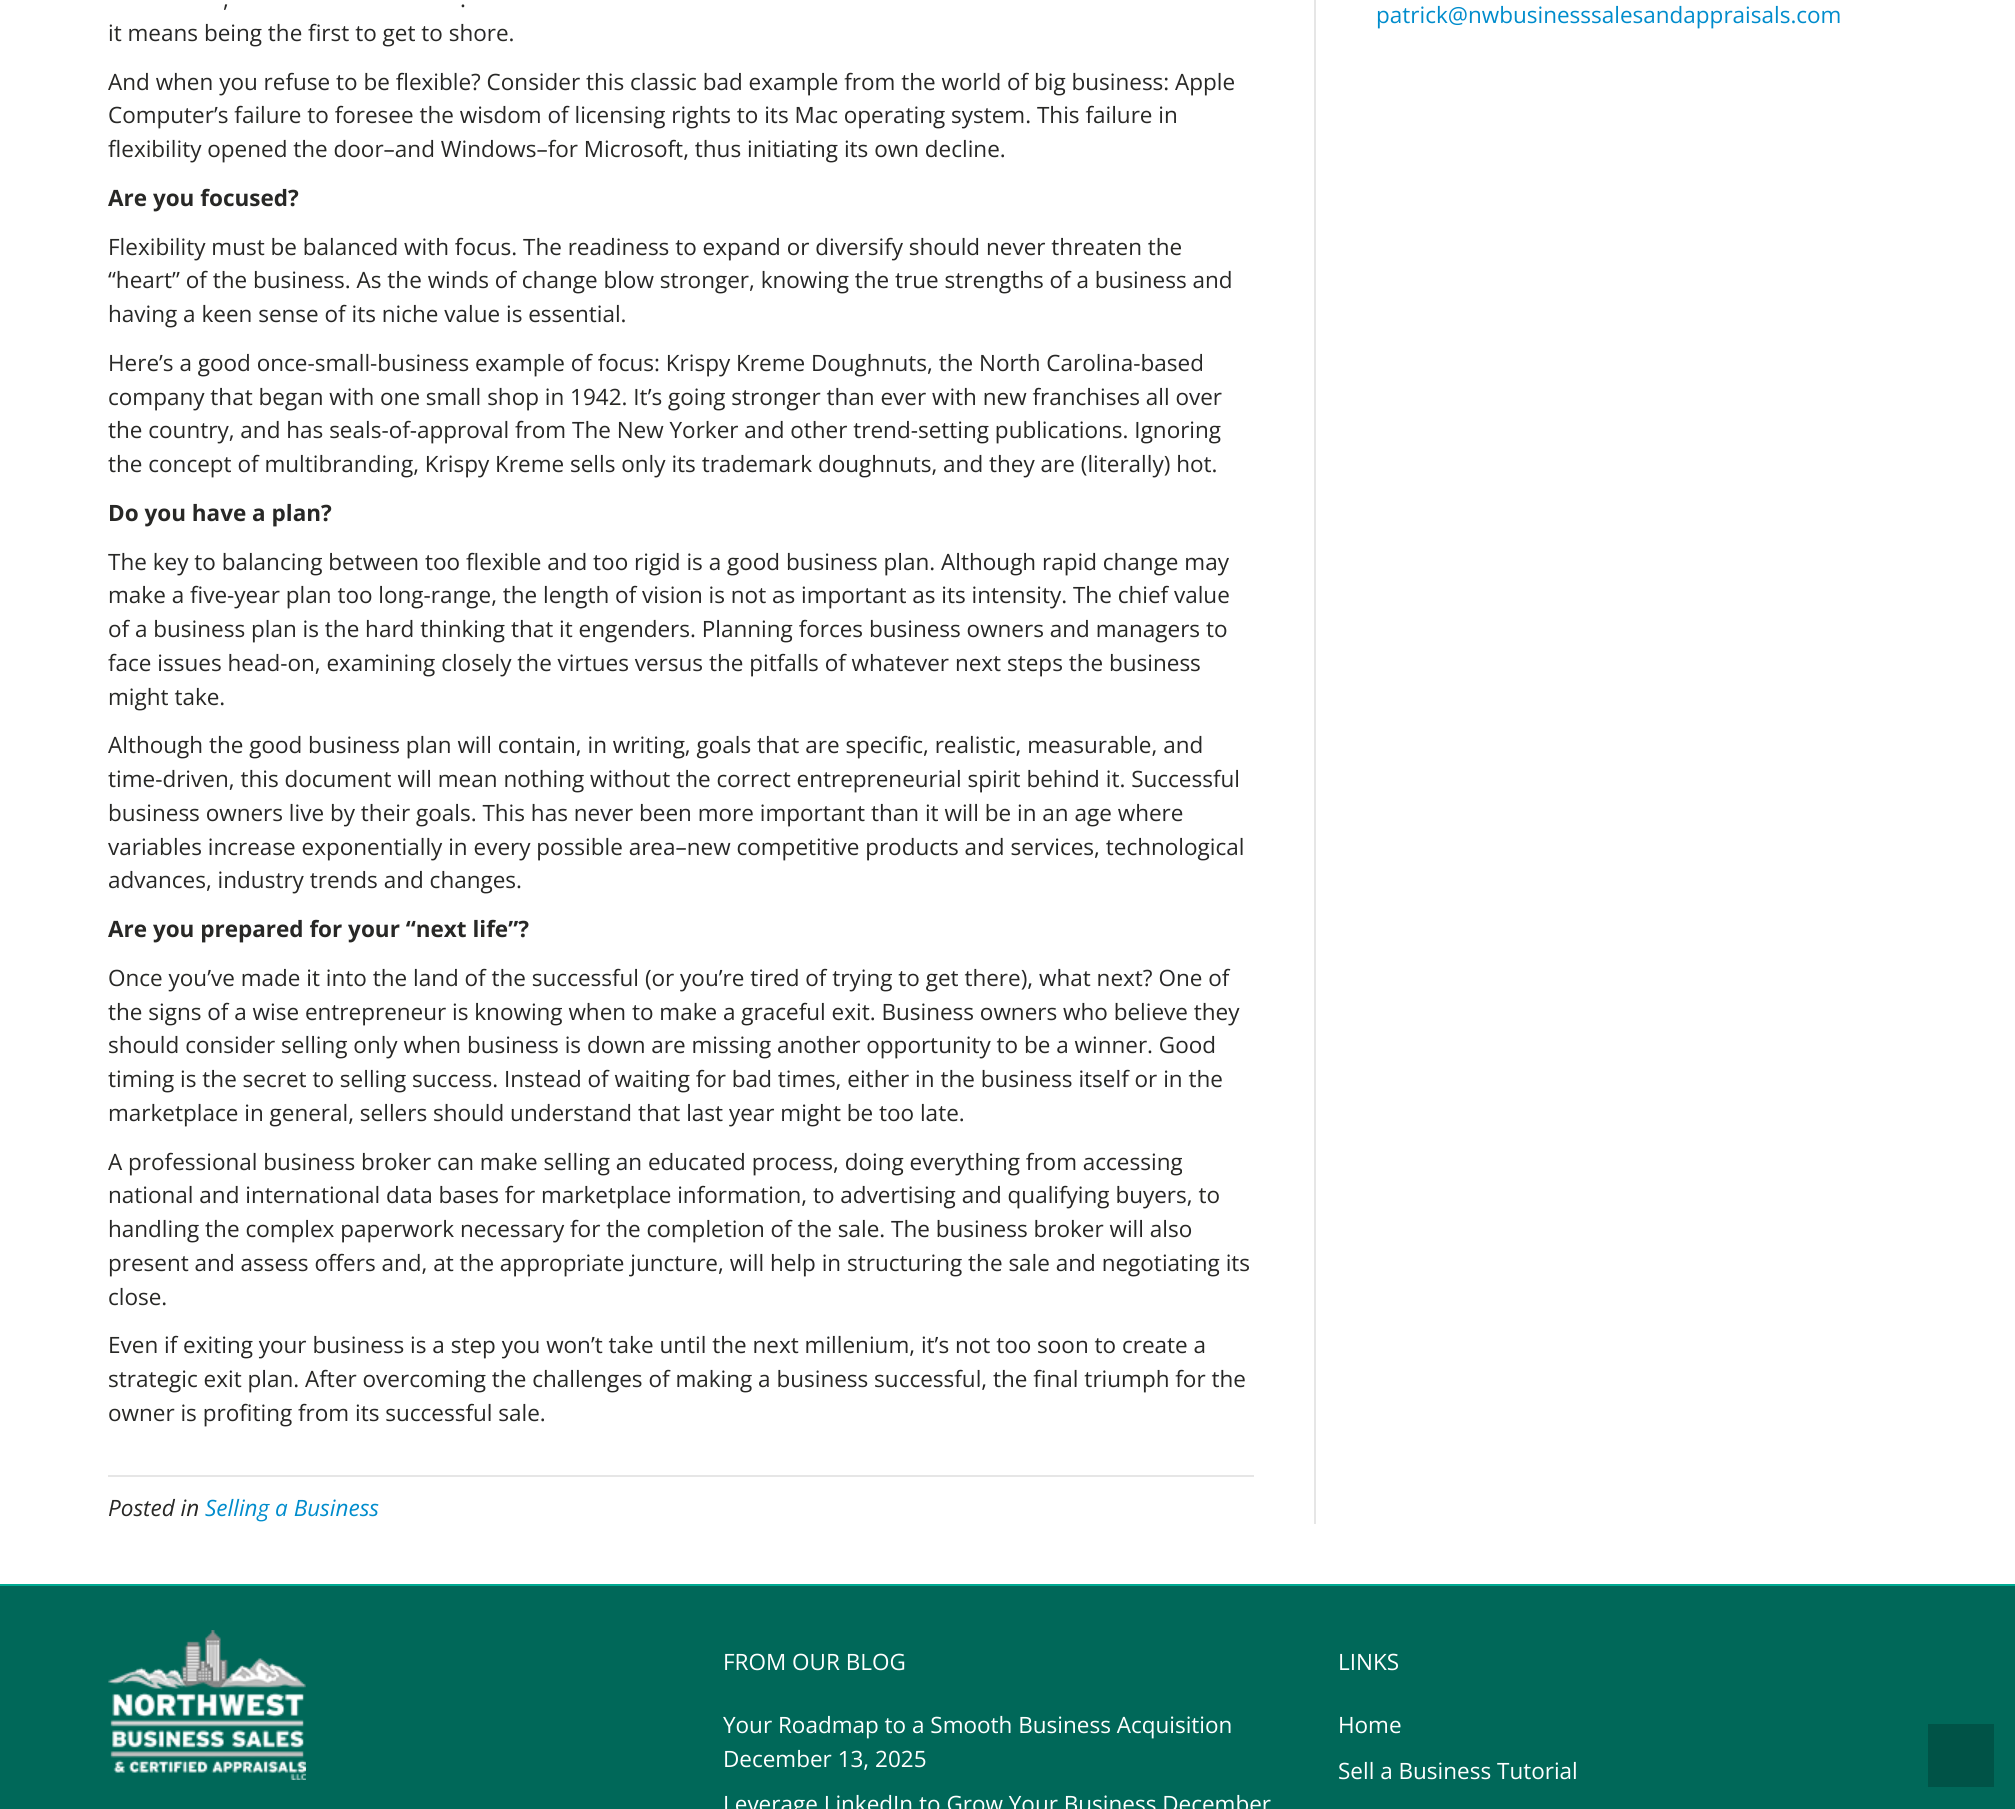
import math
import cairo

surface = cairo.ImageSurface(cairo.FORMAT_RGB24, 2015, 1809)
c = cairo.Context(surface)
options = cairo.FontOptions()
options.set_hint_metrics(cairo.HINT_METRICS_OFF)
options.set_hint_style(cairo.HINT_STYLE_NONE)
c.set_font_options(options)
c.set_miter_limit(4)
def C(code):
 c.set_source_rgb(*(v / 255 for v in bytes.fromhex(code[-6:])))
def F(family, size, italic, bold):
 c.select_font_face(family, cairo.FONT_SLANT_ITALIC if italic else cairo.FONT_SLANT_NORMAL, cairo.FONT_WEIGHT_BOLD if bold else cairo.FONT_WEIGHT_NORMAL)
 c.set_font_size(size)
def T(x, y, s):
 c.move_to(x, y)
 c.show_text(s)
def R(x, y, w, h):
 c.rectangle(x, y, w, h)
 c.fill()
def I(path, x, y, w, h):
 c.save()
 c.set_source_surface(cairo.ImageSurface.create_from_png(path), x, y)
 c.rectangle(x, y, w, h)
 c.fill()
 c.restore()
C('ffffff')
c.paint()
C('e6e6e6')
R(1314,0,2,1524)
F('Open Sans',22.5,0,0)
C('282826')
T(223,7,',')
T(460,7,'.')
T(108,41,'it means being the first to get to shore.')
T(108,90,'And when you refuse to be flexible? Consider this classic bad example from the world of big business: Apple')
T(108,123,'Computer’s failure to foresee the wisdom of licensing rights to its Mac operating system. This failure in')
T(108,157,'flexibility opened the door–and Windows–for Microsoft, thus initiating its own decline.')
F('Open Sans',22.5,0,1)
T(108,206,'Are you focused?')
F('Open Sans',22.5,0,0)
T(108,255,'Flexibility must be balanced with focus. The readiness to expand or diversify should never threaten the')
T(108,288,'“heart” of the business. As the winds of change blow stronger, knowing the true strengths of a business and')
T(108,322,'having a keen sense of its niche value is essential.')
T(108,371,'Here’s a good once-small-business example of focus: Krispy Kreme Doughnuts, the North Carolina-based')
T(108,405,'company that began with one small shop in 1942. It’s going stronger than ever with new franchises all over')
T(108,438,'the country, and has seals-of-approval from The New Yorker and other trend-setting publications. Ignoring')
T(108,472,'the concept of multibranding, Krispy Kreme sells only its trademark doughnuts, and they are (literally) hot.')
F('Open Sans',22.5,0,1)
T(108,521,'Do you have a plan?')
F('Open Sans',22.5,0,0)
T(108,570,'The key to balancing between too flexible and too rigid is a good business plan. Although rapid change may')
T(108,603,'make a five-year plan too long-range, the length of vision is not as important as its intensity. The chief value')
T(108,637,'of a business plan is the hard thinking that it engenders. Planning forces business owners and managers to')
T(108,671,'face issues head-on, examining closely the virtues versus the pitfalls of whatever next steps the business')
T(108,705,'might take.')
T(108,753,'Although the good business plan will contain, in writing, goals that are specific, realistic, measurable, and')
T(108,787,'time-driven, this document will mean nothing without the correct entrepreneurial spirit behind it. Successful')
T(108,821,'business owners live by their goals. This has never been more important than it will be in an age where')
T(108,855,'variables increase exponentially in every possible area–new competitive products and services, technological')
T(108,888,'advances, industry trends and changes.')
F('Open Sans',22.5,0,1)
T(108,937,'Are you prepared for your “next life”?')
F('Open Sans',22.5,0,0)
T(108,986,'Once you’ve made it into the land of the successful (or you’re tired of trying to get there), what next? One of')
T(108,1020,'the signs of a wise entrepreneur is knowing when to make a graceful exit. Business owners who believe they')
T(108,1053,'should consider selling only when business is down are missing another opportunity to be a winner. Good')
T(108,1087,'timing is the secret to selling success. Instead of waiting for bad times, either in the business itself or in the')
T(108,1121,'marketplace in general, sellers should understand that last year might be too late.')
T(108,1170,'A professional business broker can make selling an educated process, doing everything from accessing')
T(108,1203,'national and international data bases for marketplace information, to advertising and qualifying buyers, to')
T(108,1237,'handling the complex paperwork necessary for the completion of the sale. The business broker will also')
T(108,1271,'present and assess offers and, at the appropriate juncture, will help in structuring the sale and negotiating its')
T(108,1305,'close.')
T(108,1353,'Even if exiting your business is a step you won’t take until the next millenium, it’s not too soon to create a')
T(108,1387,'strategic exit plan. After overcoming the challenges of making a business successful, the final triumph for the')
T(108,1421,'owner is profiting from its successful sale.')
C('e6e6e6')
R(108,1475,1146,2)
F('Open Sans',22.5,1,0)
C('282826')
T(108,1516,'Posted in')
C('008ccc')
T(205,1516,'Selling a Business')
F('Open Sans',22.5,0,0)
T(1376,23,'patrick@nwbusinesssalesandappraisals.com')
C('006859')
R(0,1586,2015,223)
C('00aa92')
R(0,1584,2015,2)
I('1.png',108,1630,198,150)
C('ffffff')
T(723,1670,'FROM OUR BLOG')
T(723,1733,'Your Roadmap to a Smooth Business Acquisition')
T(723,1767,'December 13, 2025')
T(723,1812,'Leverage LinkedIn to Grow Your Business December')
T(1338,1670,'LINKS')
T(1338,1733,'Home')
T(1338,1779,'Sell a Business Tutorial')
C('005347')
R(1928,1724,66,63)
surface.write_to_png('o.png')
